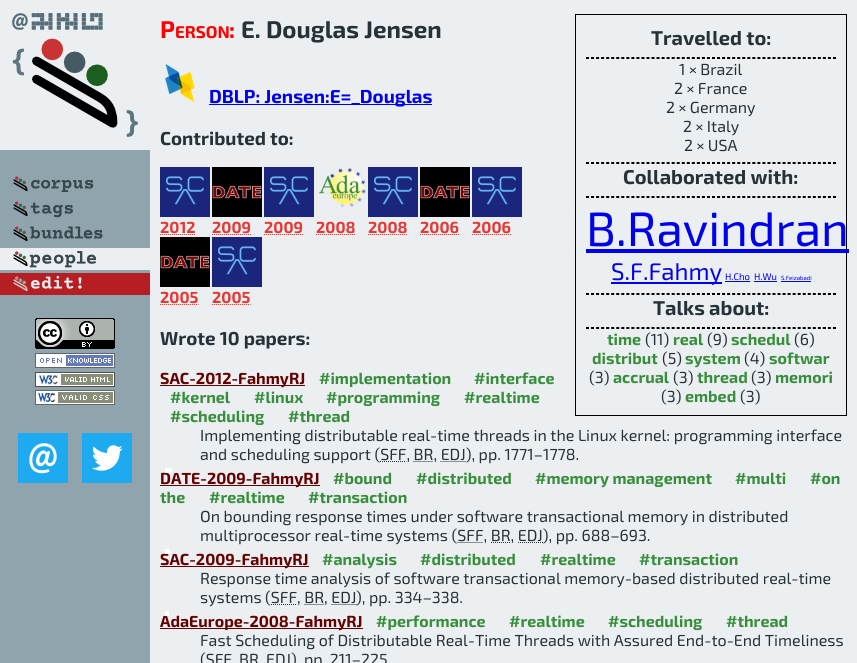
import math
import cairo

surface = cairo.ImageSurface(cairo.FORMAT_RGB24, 857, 663)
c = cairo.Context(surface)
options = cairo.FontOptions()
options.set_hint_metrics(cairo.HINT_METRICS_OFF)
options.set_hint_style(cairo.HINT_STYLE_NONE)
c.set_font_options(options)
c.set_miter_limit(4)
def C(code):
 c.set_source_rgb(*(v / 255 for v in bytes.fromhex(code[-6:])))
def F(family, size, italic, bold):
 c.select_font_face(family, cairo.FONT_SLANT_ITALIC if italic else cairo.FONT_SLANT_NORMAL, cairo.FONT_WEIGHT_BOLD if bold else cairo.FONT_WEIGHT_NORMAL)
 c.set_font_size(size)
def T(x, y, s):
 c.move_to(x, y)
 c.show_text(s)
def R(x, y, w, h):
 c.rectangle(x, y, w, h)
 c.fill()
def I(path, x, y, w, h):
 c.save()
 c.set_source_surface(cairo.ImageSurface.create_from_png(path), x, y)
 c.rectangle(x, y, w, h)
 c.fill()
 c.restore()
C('eceff1')
c.paint()
C('90a4ae')
R(0,150,150,513)
I('1.png',0,0,150,150)
I('2.png',13,176,81,16)
I('3.png',13,201,60,17)
I('4.png',13,226,90,16)
I('5.png',0,248,150,22)
I('6.png',0,273,150,22)
I('7.png',35,318,80,31)
I('8.png',35,353,80,15)
I('9.png',35,372,80,15)
I('10.png',35,390,80,15)
I('11.png',18,433,50,50)
I('12.png',82,433,50,50)
F('Exo 2',24,0,1)
C('ff0000')
T(160,38,'P')
F('Exo 2',17,0,1)
T(175,38,'ERSON')
F('Exo 2',24,0,1)
T(229,38,':')
C('263238')
T(241,38,'E. Douglas Jensen')
c.rectangle(575.5,14.5,271,401)
C('000000')
c.set_line_width(1)
c.stroke()
F('Exo 2',20,0,1)
C('263238')
T(651,45,'Travelled to:')
c.new_path()
c.move_to(586,57.5)
c.line_to(836,57.5)
C('000000')
c.set_dash([3,2.04])
c.stroke()
R(835,57,1,2)
c.new_path()
c.move_to(586,58.5)
c.line_to(836,58.5)
c.stroke()
F('Exo 2',16,0,0)
C('263238')
T(679,75,'1 × Brazil')
T(674,94,'2 × France')
T(666,113,'2 × Germany')
T(683,132,'2 × Italy')
T(684,151,'2 × USA')
c.new_path()
c.move_to(586,162.5)
c.line_to(836,162.5)
C('000000')
c.stroke()
R(835,162,1,2)
c.new_path()
c.move_to(586,163.5)
c.line_to(836,163.5)
c.stroke()
F('Exo 2',20,0,1)
C('263238')
T(623,184,'Collaborated with:')
c.new_path()
c.move_to(586,196.5)
c.line_to(836,196.5)
C('000000')
c.stroke()
R(835,196,1,2)
c.new_path()
c.move_to(586,197.5)
c.line_to(836,197.5)
c.stroke()
F('Exo 2',48,0,0)
C('0000ee')
T(586,246,'B.Ravindran')
R(586,249,263,4)
R(611,282,111,2)
F('Exo 2',24,0,0)
T(611,280,'S.F.Fahmy')
F('Exo 2',9.5,0,0)
T(725,280,'H.Cho')
R(725,281,25,1)
T(754,280,'H.Wu')
R(754,281,23,1)
F('Exo 2',6,0,0)
T(781,280,'S.Feizabadi')
R(781,281,30,1)
c.new_path()
c.move_to(586,293.5)
c.line_to(836,293.5)
C('000000')
c.stroke()
R(835,293,1,2)
c.new_path()
c.move_to(586,294.5)
c.line_to(836,294.5)
c.stroke()
F('Exo 2',20,0,1)
C('263238')
T(653,315,'Talks about:')
c.new_path()
c.move_to(586,327.5)
c.line_to(836,327.5)
C('000000')
c.stroke()
R(835,327,1,2)
c.new_path()
c.move_to(586,328.5)
c.line_to(836,328.5)
c.stroke()
F('Exo 2',16,0,1)
C('388e3c')
T(607,345,'time')
F('Exo 2',16,0,0)
C('263238')
T(645,345,'(11)')
F('Exo 2',16,0,1)
C('388e3c')
T(673,345,'real')
F('Exo 2',16,0,0)
C('263238')
T(707,345,'(9)')
F('Exo 2',16,0,1)
C('388e3c')
T(731,345,'schedul')
F('Exo 2',16,0,0)
C('263238')
T(794,345,'(6)')
F('Exo 2',16,0,1)
C('388e3c')
T(592,364,'distribut')
F('Exo 2',16,0,0)
C('263238')
T(662,364,'(5)')
F('Exo 2',16,0,1)
C('388e3c')
T(685,364,'system')
F('Exo 2',16,0,0)
C('263238')
T(744,364,'(4)')
F('Exo 2',16,0,1)
C('388e3c')
T(769,364,'softwar')
F('Exo 2',16,0,0)
C('263238')
T(589,383,'(3)')
F('Exo 2',16,0,1)
C('388e3c')
T(613,383,'accrual')
F('Exo 2',16,0,0)
C('263238')
T(673,383,'(3)')
F('Exo 2',16,0,1)
C('388e3c')
T(697,383,'thread')
F('Exo 2',16,0,0)
C('263238')
T(751,383,'(3)')
F('Exo 2',16,0,1)
C('388e3c')
T(775,383,'memori')
F('Exo 2',16,0,0)
C('263238')
T(661,402,'(3)')
F('Exo 2',16,0,1)
C('388e3c')
T(685,402,'embed')
F('Exo 2',16,0,0)
C('263238')
T(740,402,'(3)')
I('13.png',165,64,30,38)
C('0000ee')
R(209,104,223,1)
F('Exo 2',18.75,0,1)
T(209,103,'DBLP: Jensen:E=_Douglas')
C('263238')
T(160,145,'Contributed to:')
I('14.png',160,167,50,50)
F('Exo 2',16,0,1)
C('e53935')
T(160,233,'2012')
c.new_path()
c.move_to(160,234.5)
c.line_to(195.5,234.5)
c.set_dash([1,1])
c.stroke()
I('15.png',212,167,50,50)
T(212,233,'2009')
c.new_path()
c.move_to(212,234.5)
c.line_to(251,234.5)
c.stroke()
I('14.png',264,167,50,50)
T(264,233,'2009')
c.new_path()
c.move_to(264,234.5)
c.line_to(303,234.5)
c.stroke()
I('16.png',318,168,48,40)
T(316,233,'2008')
c.new_path()
c.move_to(316,234.5)
c.line_to(355.5,234.5)
c.stroke()
I('14.png',368,167,50,50)
T(368,233,'2008')
c.new_path()
c.move_to(368,234.5)
c.line_to(407.5,234.5)
c.stroke()
I('15.png',420,167,50,50)
T(420,233,'2006')
c.new_path()
c.move_to(420,234.5)
c.line_to(459,234.5)
c.stroke()
I('14.png',472,167,50,50)
T(472,233,'2006')
c.new_path()
c.move_to(472,234.5)
c.line_to(511,234.5)
c.stroke()
I('15.png',160,237,50,50)
T(160,303,'2005')
c.new_path()
c.move_to(160,304.5)
c.line_to(198.5,304.5)
c.stroke()
I('14.png',212,237,50,50)
T(212,303,'2005')
c.new_path()
c.move_to(212,304.5)
c.line_to(250.5,304.5)
c.stroke()
F('Exo 2',18.75,0,1)
C('263238')
T(160,345,'Wrote 10 papers:')
C('660000')
R(160,385,145,1)
F('Exo 2',16,0,1)
T(160,384,'SAC-2012-FahmyRJ')
C('388e3c')
T(319,384,'#implementation')
T(474,384,'#interface')
T(170,403,'#kernel')
T(254,403,'#linux')
T(326,403,'#programming')
T(464,403,'#realtime')
T(170,422,'#scheduling')
T(288,422,'#thread')
F('Exo 2',16,0,0)
C('263238')
T(200,441,'Implementing distributable real-time threads in the Linux kernel: programming interface')
T(200,460,'and scheduling support (SFF, BR, EDJ), pp. 1771–1778.')
c.new_path()
c.move_to(380,461.5)
c.line_to(406.5,461.5)
c.move_to(413.5,461.5)
c.line_to(433.5,461.5)
c.stroke()
c.new_path()
c.move_to(440.5,461.5)
c.line_to(465.5,461.5)
c.stroke()
C('660000')
R(160,485,160,1)
F('Exo 2',16,0,1)
T(160,484,'DATE-2009-FahmyRJ')
C('ffffff')
R(165,468,7,5)
C('388e3c')
T(333,484,'#bound')
T(416,484,'#distributed')
T(535,484,'#memory management')
T(735,484,'#multi')
T(810,484,'#on')
T(160,503,'the')
T(209,503,'#realtime')
T(308,503,'#transaction')
F('Exo 2',16,0,0)
C('263238')
T(200,522,'On bounding response times under software transactional memory in distributed')
T(200,541,'multiprocessor real-time systems (SFF, BR, EDJ), pp. 688–693.')
c.new_path()
c.move_to(457.5,542.5)
c.line_to(483.5,542.5)
c.move_to(491,542.5)
c.line_to(510.5,542.5)
c.stroke()
c.new_path()
c.move_to(518,542.5)
c.line_to(543,542.5)
c.stroke()
C('660000')
R(160,566,149,1)
F('Exo 2',16,0,1)
T(160,565,'SAC-2009-FahmyRJ')
C('ffffff')
R(165,549,5,5)
C('388e3c')
T(322,565,'#analysis')
T(420,565,'#distributed')
T(540,565,'#realtime')
T(639,565,'#transaction')
F('Exo 2',16,0,0)
C('263238')
T(200,584,'Response time analysis of software transactional memory-based distributed real-time')
T(200,603,'systems (SFF, BR, EDJ')
c.new_path()
c.move_to(331.5,604.5)
c.line_to(356.5,604.5)
c.stroke()
T(356,603,'), pp. 334–338.')
c.new_path()
c.move_to(271,604.5)
c.line_to(297,604.5)
c.move_to(304.5,604.5)
c.line_to(324,604.5)
c.stroke()
C('660000')
R(160,628,203,1)
F('Exo 2',16,0,1)
T(160,627,'AdaEurope-2008-FahmyRJ')
C('ffffff')
R(165,611,4,5)
C('388e3c')
T(376,627,'#performance')
T(509,627,'#realtime')
T(608,627,'#scheduling')
T(726,627,'#thread')
F('Exo 2',16,0,0)
C('263238')
T(200,646,'Fast Scheduling of Distributable Real-Time Threads with Assured End-to-End Timeliness')
T(200,665,'(SFF')
T(239,665,'BR')
T(266,665,'EDJ), pp. 211–225')
surface.write_to_png('o.png')
